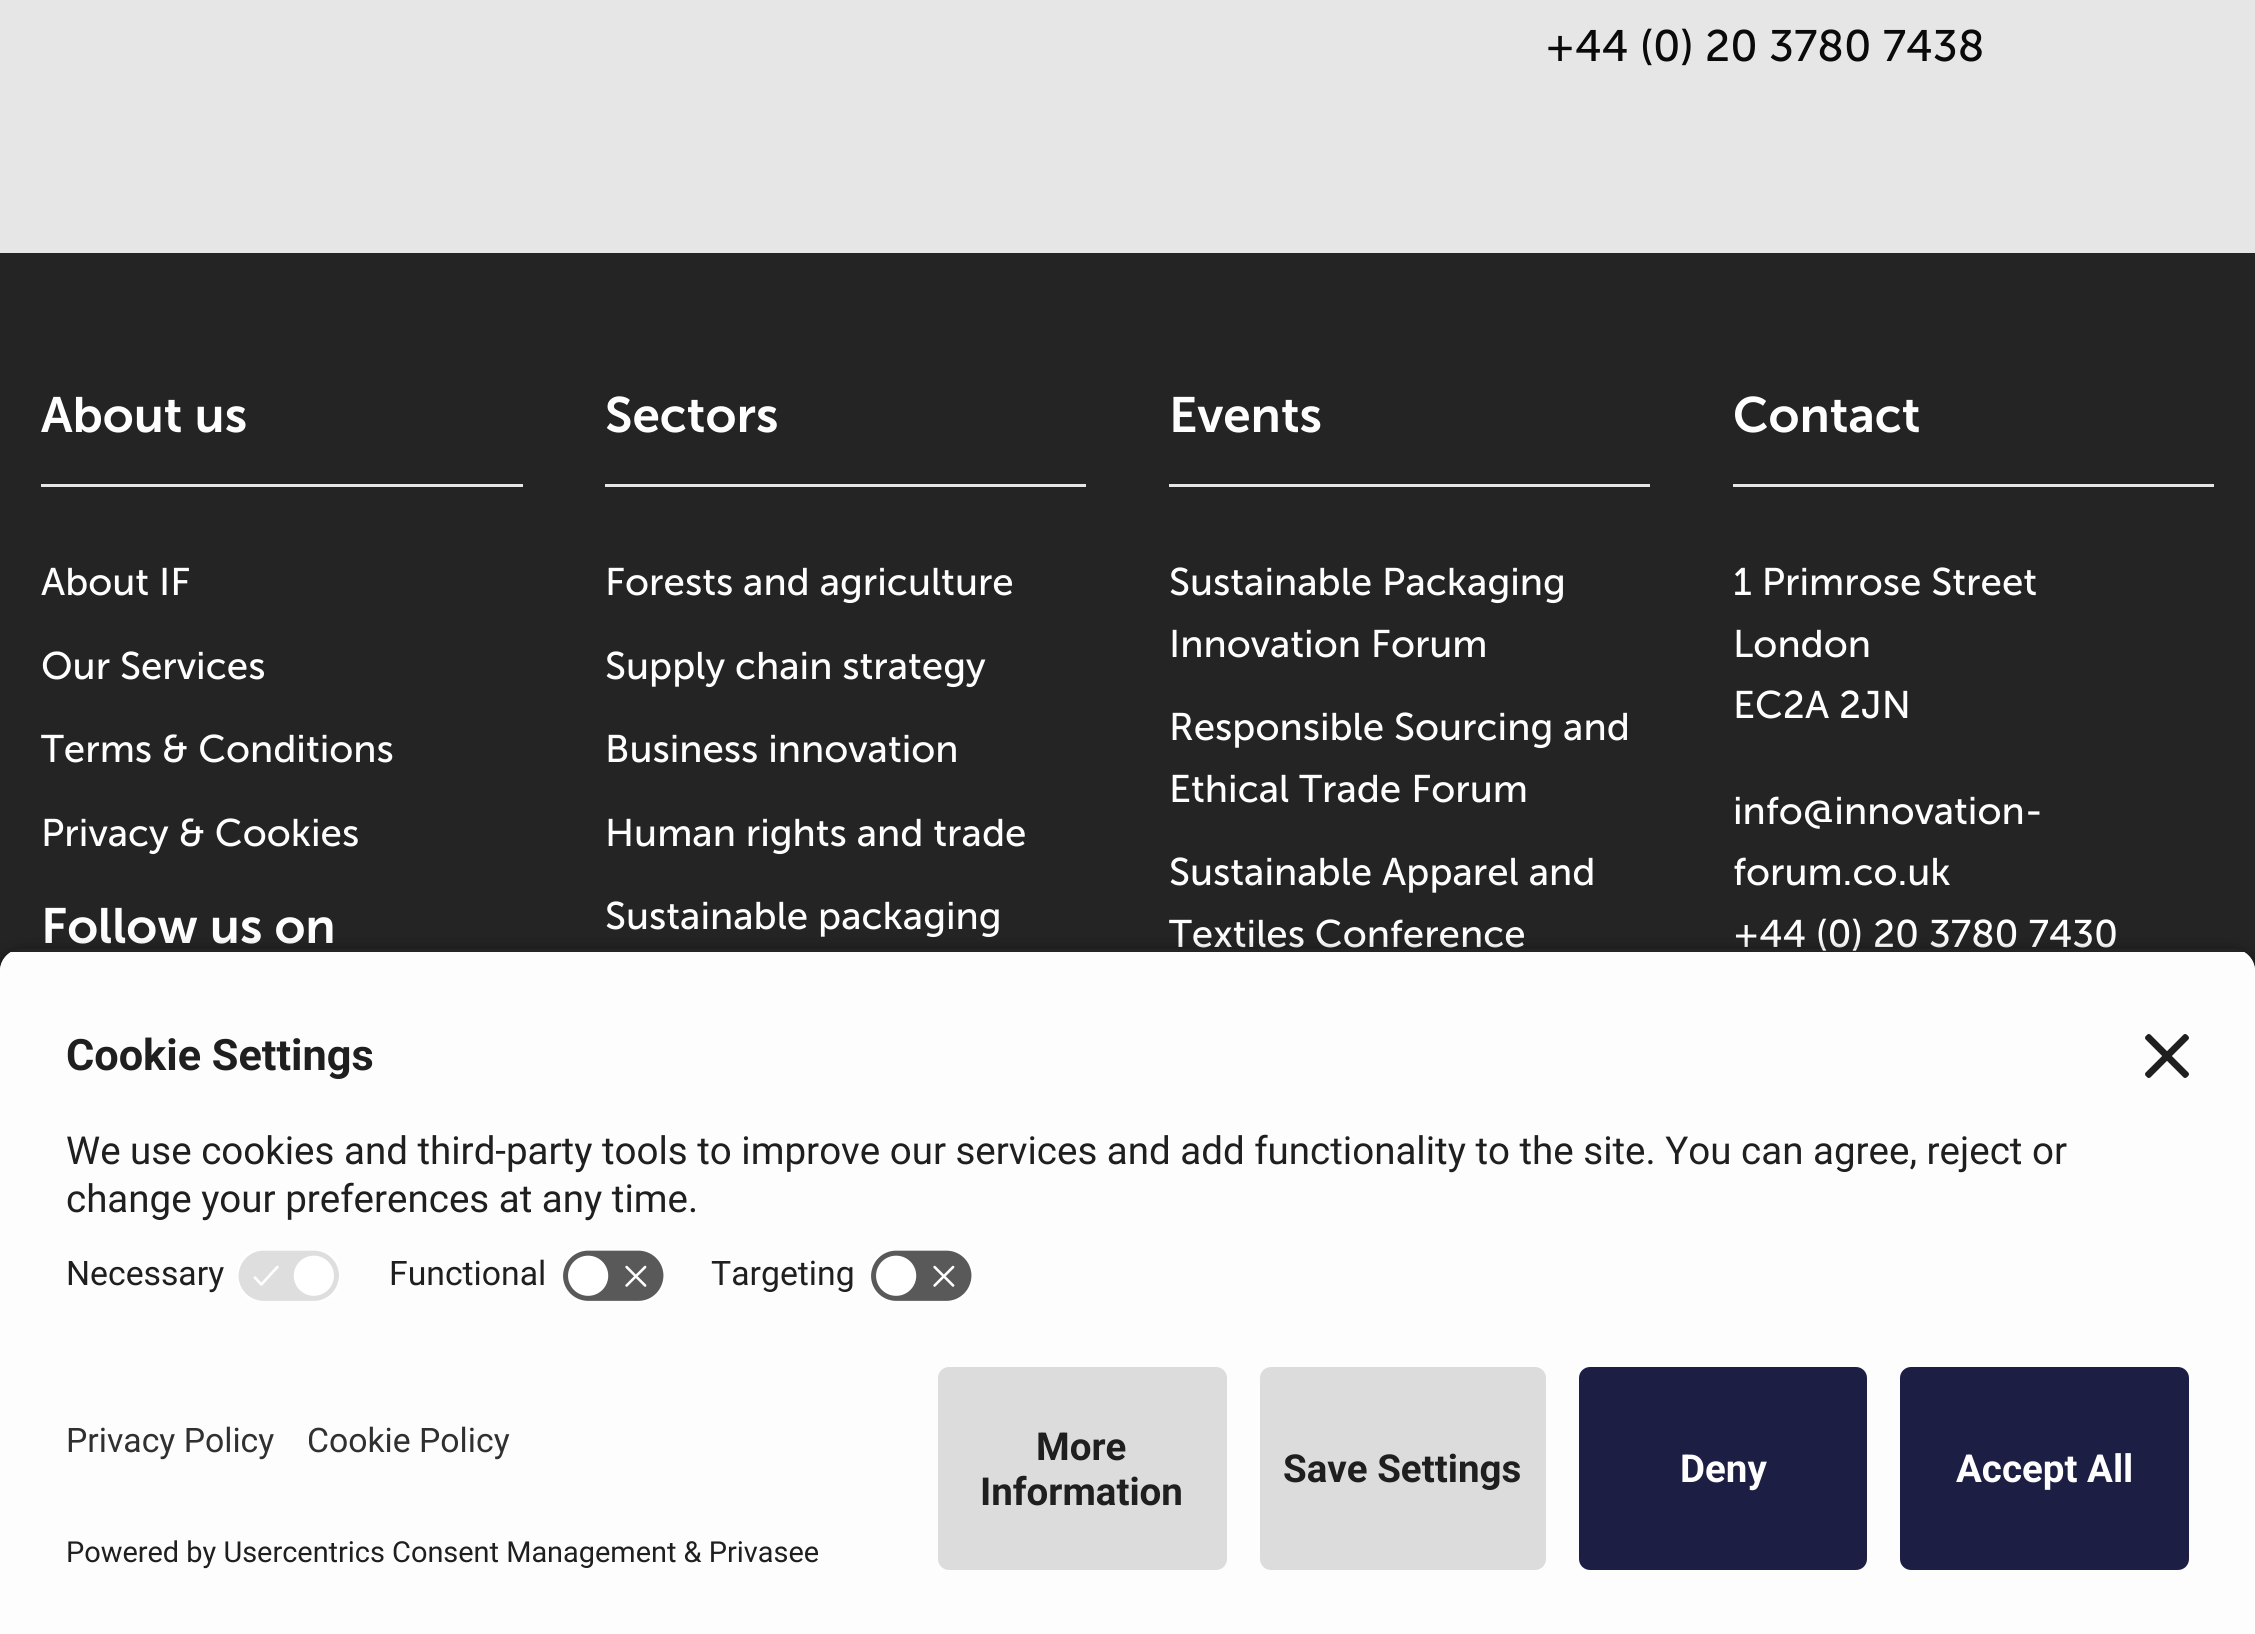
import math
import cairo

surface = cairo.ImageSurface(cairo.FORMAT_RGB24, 2255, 1634)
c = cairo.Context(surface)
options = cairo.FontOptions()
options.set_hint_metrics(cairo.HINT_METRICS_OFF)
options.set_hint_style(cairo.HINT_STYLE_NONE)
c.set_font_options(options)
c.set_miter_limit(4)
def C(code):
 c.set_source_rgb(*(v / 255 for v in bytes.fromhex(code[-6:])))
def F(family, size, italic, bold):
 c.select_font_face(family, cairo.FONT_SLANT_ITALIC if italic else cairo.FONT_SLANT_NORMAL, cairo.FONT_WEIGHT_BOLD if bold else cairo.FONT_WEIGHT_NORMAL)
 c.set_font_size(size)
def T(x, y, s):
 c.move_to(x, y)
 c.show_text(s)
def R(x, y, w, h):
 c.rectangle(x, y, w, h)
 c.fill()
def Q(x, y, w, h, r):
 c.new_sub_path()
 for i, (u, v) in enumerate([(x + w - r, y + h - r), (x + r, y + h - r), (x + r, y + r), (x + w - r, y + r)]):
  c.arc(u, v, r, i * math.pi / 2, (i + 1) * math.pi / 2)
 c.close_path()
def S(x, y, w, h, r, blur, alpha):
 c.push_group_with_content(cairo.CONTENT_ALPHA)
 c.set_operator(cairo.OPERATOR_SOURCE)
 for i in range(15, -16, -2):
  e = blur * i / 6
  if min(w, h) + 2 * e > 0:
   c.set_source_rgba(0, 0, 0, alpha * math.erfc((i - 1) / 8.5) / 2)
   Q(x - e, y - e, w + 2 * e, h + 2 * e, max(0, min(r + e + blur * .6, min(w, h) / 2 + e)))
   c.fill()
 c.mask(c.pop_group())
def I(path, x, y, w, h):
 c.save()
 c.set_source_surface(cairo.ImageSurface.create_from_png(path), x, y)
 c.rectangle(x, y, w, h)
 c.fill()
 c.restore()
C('e6e6e6')
c.paint()
F('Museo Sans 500',44,0,0)
C('0a0a0a')
T(1545,61,'+44 (0) 20 3780 7438')
C('242424')
R(0,253,2255,718)
C('e6e6e6')
R(41,484,482,3)
F('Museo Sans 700 SemiBold',49.5,0,0)
C('fefefe')
T(41,432,'About us')
F('Museo Sans 500',38.5,0,0)
T(41,595,'About IF')
T(41,679,'Our Services')
T(41,762,'Terms & Conditions')
T(41,846,'Privacy & Cookies')
F('Museo Sans 700 SemiBold',49.5,0,0)
T(41,943,'Follow us on')
C('e6e6e6')
R(605,484,481,3)
C('fefefe')
T(605,432,'Sectors')
F('Museo Sans 500',38.5,0,0)
T(605,595,'Forests and agriculture')
T(605,679,'Supply chain strategy')
T(605,762,'Business innovation')
T(605,846,'Human rights and trade')
T(605,929,'Sustainable packaging')
C('e6e6e6')
R(1169,484,481,3)
F('Museo Sans 700 SemiBold',49.5,0,0)
C('fefefe')
T(1169,432,'Events')
F('Museo Sans 500',38.5,0,0)
T(1169,595,'Sustainable Packaging')
T(1169,657,'Innovation Forum')
T(1169,740,'Responsible Sourcing and')
T(1169,802,'Ethical Trade Forum')
T(1169,885,'Sustainable Apparel and')
T(1169,947,'Textiles Conference')
C('e6e6e6')
R(1733,484,481,3)
F('Museo Sans 700 SemiBold',49.5,0,0)
C('fefefe')
T(1733,432,'Contact')
F('Museo Sans 500',38.5,0,0)
T(1733,595,'1 Primrose Street')
T(1733,657,'London')
T(1733,718,'EC2A 2JN')
T(1733,824,'info@innovation-')
T(1733,885,'forum.co.uk')
T(1733,947,'+44 (0) 20 3780 7430')
c.save()
c.set_fill_rule(cairo.FILL_RULE_EVEN_ODD)
c.new_path()
c.move_to(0,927)
c.line_to(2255,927)
c.line_to(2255,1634)
c.line_to(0,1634)
c.close_path()
c.move_to(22,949)
c.line_to(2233,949)
c.curve_to(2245,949,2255,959,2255,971)
c.line_to(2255,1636)
c.line_to(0,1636)
c.line_to(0,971)
c.curve_to(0,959,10,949,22,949)
c.close_path()
c.clip()
C('000000')
S(0,957,2255,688,22,9.5,.8)
c.restore()
c.save()
c.new_path()
c.move_to(22,949)
c.line_to(2233,949)
c.curve_to(2245,949,2255,959,2255,971)
c.line_to(2255,1345)
c.line_to(0,1345)
c.line_to(0,971)
c.curve_to(0,959,10,949,22,949)
c.close_path()
c.clip()
C('fdfdfd')
R(0,952,2255,393)
R(0,952,2255,283)
c.restore()
F('Roboto',43.25,0,1)
C('1f1f1f')
T(66,1070,'Cookie Settings')
I('1.png',2145,1034,44,44)
F('Roboto',38.5,0,0)
T(66,1164,'We use cookies and third-party tools to improve our services and add functionality to the site. You can agree, reject or')
T(66,1212,'change your preferences at any time.')
F('Roboto',33.75,0,0)
T(66,1285,'Necessary')
I('2.png',238,1250,101,51)
T(389,1285,'Functional')
I('3.png',563,1250,101,51)
T(711,1285,'Targeting')
I('3.png',871,1250,101,51)
C('fdfdfd')
R(0,1345,2255,289)
C('303030')
T(66,1452,'Privacy Policy')
T(307,1452,'Cookie Policy')
F('Roboto',28.9,0,0)
C('1f1f1f')
T(66,1562,'Powered by Usercentrics Consent Management & Privasee')
C('dcdcdc')
Q(938,1367,289,203,11)
c.fill()
F('Roboto',38.5,0,1)
C('1f1f1f')
T(1036,1460,'More')
T(980,1505,'Information')
C('dcdcdc')
Q(1260,1367,286,203,11)
c.fill()
C('1f1f1f')
T(1283,1482,'Save Settings')
C('1d1e44')
Q(1579,1367,288,203,11)
c.fill()
C('fefefe')
T(1680,1482,'Deny')
C('1d1e44')
Q(1900,1367,289,203,11)
c.fill()
C('fefefe')
T(1956,1482,'Accept All')
surface.write_to_png('o.png')
